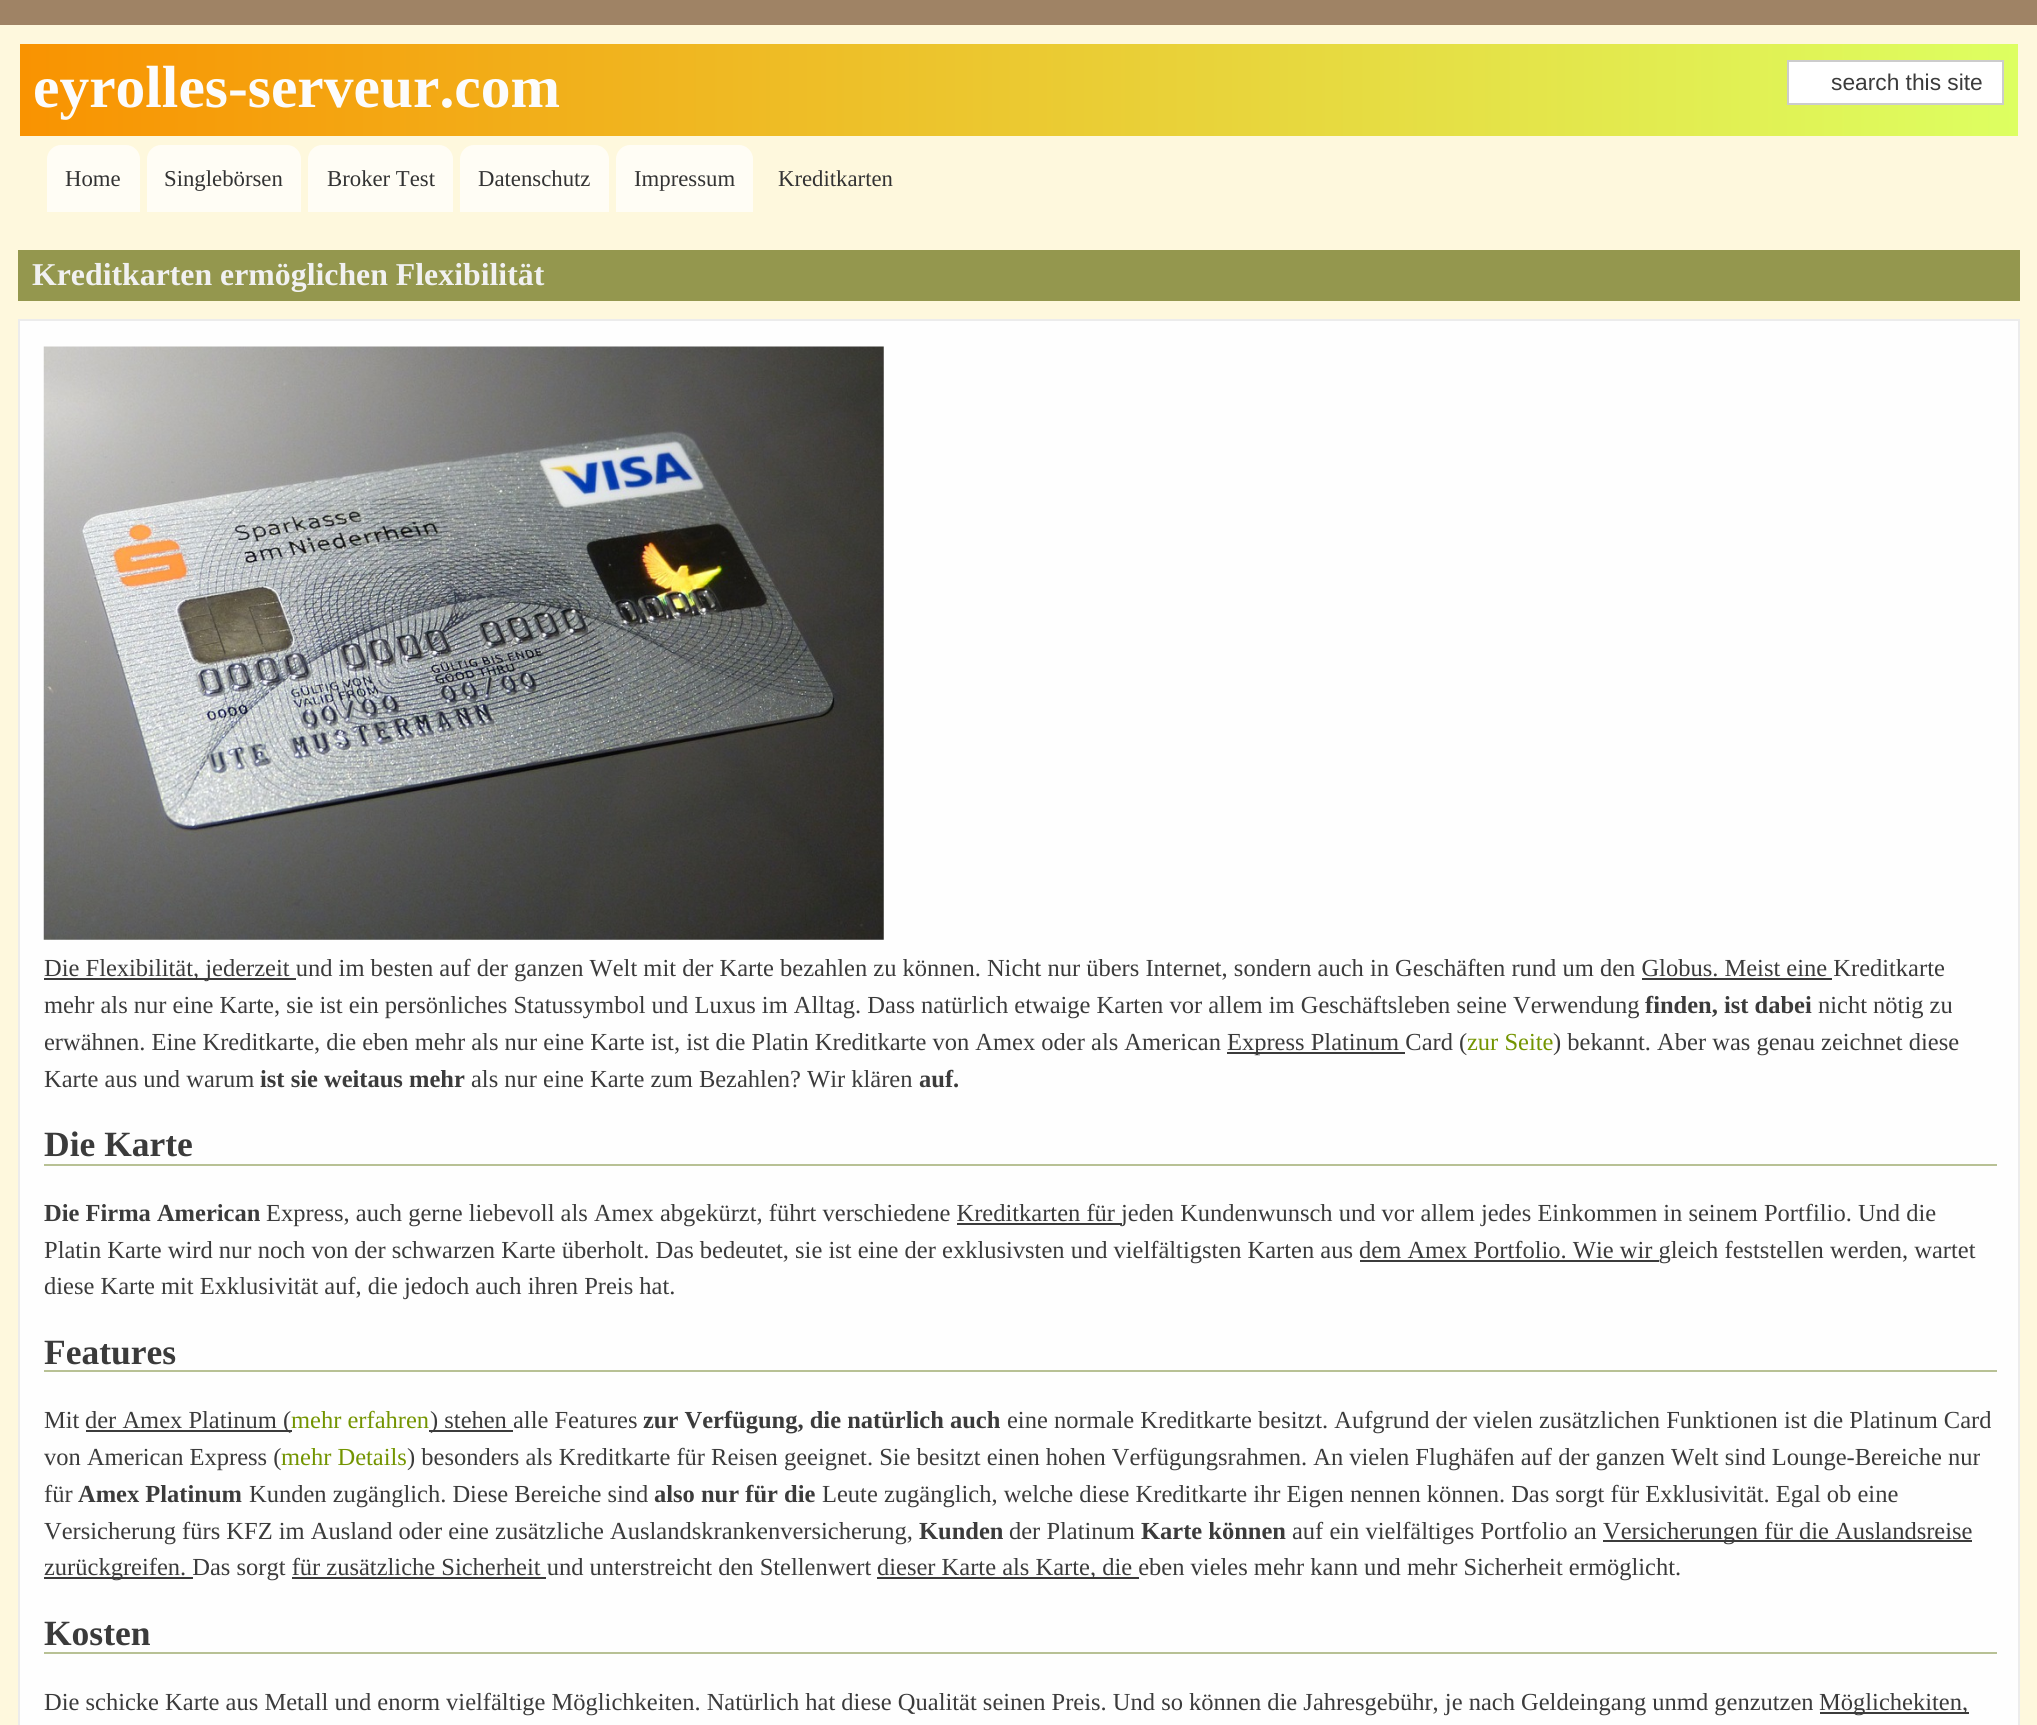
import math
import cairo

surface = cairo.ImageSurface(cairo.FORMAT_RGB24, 2037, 1725)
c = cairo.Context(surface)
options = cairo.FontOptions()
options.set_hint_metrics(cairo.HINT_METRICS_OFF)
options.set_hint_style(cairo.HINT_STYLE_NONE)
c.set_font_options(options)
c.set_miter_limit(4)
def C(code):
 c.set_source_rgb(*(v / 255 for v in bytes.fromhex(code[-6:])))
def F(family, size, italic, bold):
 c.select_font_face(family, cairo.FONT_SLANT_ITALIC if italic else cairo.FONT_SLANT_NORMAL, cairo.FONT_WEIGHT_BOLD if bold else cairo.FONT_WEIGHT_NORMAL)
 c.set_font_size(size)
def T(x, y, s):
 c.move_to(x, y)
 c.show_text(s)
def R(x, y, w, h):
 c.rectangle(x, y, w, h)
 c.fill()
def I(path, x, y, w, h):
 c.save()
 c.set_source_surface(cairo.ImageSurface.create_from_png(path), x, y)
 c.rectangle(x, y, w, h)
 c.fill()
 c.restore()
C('9f8365')
c.paint()
C('fef8dd')
R(0,25,2037,1700)
gradient = cairo.LinearGradient(19,90,2018,90)
gradient.add_color_stop_rgba(0,0.976,0.576,0.004,1)
gradient.add_color_stop_rgba(1,0.867,1,0.38,1)
c.set_source(gradient)
R(20,44,1998,92)
F('Liberation Serif',59.5,0,1)
C('fcfcfc')
T(33,107,'eyrolles-serveur.com')
C('ffffff')
c.rectangle(1788,61,215,43)
c.fill_preserve()
C('cccccc')
c.stroke()
F('Liberation Sans',22.75,0,0)
C('3b3b3b')
T(1831,90,'search this site')
C('fffdf5')
c.new_path()
c.move_to(61,145)
c.line_to(126,145)
c.curve_to(133.5,145,140,151.5,140,159)
c.line_to(140,212)
c.line_to(47,212)
c.line_to(47,159)
c.curve_to(47,151.5,53.5,145,61,145)
c.close_path()
c.fill()
F('Liberation Serif',22.75,0,0)
C('333333')
T(65,186,'Home')
C('fffdf5')
c.new_path()
c.move_to(161,145)
c.line_to(287,145)
c.curve_to(294.5,145,301,151.5,301,159)
c.line_to(301,212)
c.line_to(147,212)
c.line_to(147,159)
c.curve_to(147,151.5,153.5,145,161,145)
c.close_path()
c.fill()
C('333333')
T(164,186,'Singlebörsen')
C('fffdf5')
c.new_path()
c.move_to(322,145)
c.line_to(439,145)
c.curve_to(446.5,145,453,151.5,453,159)
c.line_to(453,212)
c.line_to(308,212)
c.line_to(308,159)
c.curve_to(308,151.5,314.5,145,322,145)
c.close_path()
c.fill()
C('333333')
T(327,186,'Broker Test')
C('fffdf5')
c.new_path()
c.move_to(474,145)
c.line_to(595,145)
c.curve_to(602.5,145,609,151.5,609,159)
c.line_to(609,212)
c.line_to(460,212)
c.line_to(460,159)
c.curve_to(460,151.5,466.5,145,474,145)
c.close_path()
c.fill()
C('333333')
T(478,186,'Datenschutz')
C('fffdf5')
c.new_path()
c.move_to(630,145)
c.line_to(739,145)
c.curve_to(746.5,145,753,151.5,753,159)
c.line_to(753,212)
c.line_to(616,212)
c.line_to(616,159)
c.curve_to(616,151.5,622.5,145,630,145)
c.close_path()
c.fill()
C('333333')
T(634,186,'Impressum')
T(778,186,'Kreditkarten')
C('94974e')
R(18,250,2002,51)
F('Liberation Serif',31.8,0,1)
C('f1f1f1')
T(32,285,'Kreditkarten ermöglichen Flexibilität')
C('fefefe')
c.rectangle(19,320,2000,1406)
c.fill_preserve()
C('ececec')
c.stroke()
I('1.png',43,346,841,594)
C('3b3b3b')
R(44,978,252,2)
F('Liberation Serif',24.5,0,0)
T(44,976,'Die Flexibilität, jederzeit und im besten auf der ganzen Welt mit der Karte bezahlen zu können. Nicht nur übers Internet, sondern auch in Geschäften rund um den Globus. Meist eine Kreditkarte')
R(1642,978,190,2)
T(44,1013,'mehr als nur eine Karte, sie ist ein persönliches Statussymbol und Luxus im Alltag. Dass natürlich etwaige Karten vor allem im Geschäftsleben seine Verwendung')
F('Liberation Serif',24.5,0,1)
T(1645,1013,'finden, ist dabei')
F('Liberation Serif',24.5,0,0)
T(1818,1013,'nicht nötig zu')
T(44,1050,'erwähnen. Eine Kreditkarte, die eben mehr als nur eine Karte ist, ist die Platin Kreditkarte von Amex oder als American')
R(1227,1052,178,2)
T(1227,1050,'Express Platinum Card (')
C('739400')
T(1467,1050,'zur Seite')
C('3b3b3b')
T(1553,1050,') bekannt. Aber was genau zeichnet diese')
T(44,1087,'Karte aus und warum')
F('Liberation Serif',24.5,0,1)
T(260,1087,'ist sie weitaus mehr')
F('Liberation Serif',24.5,0,0)
T(471,1087,'als nur eine Karte zum Bezahlen? Wir klären')
F('Liberation Serif',24.5,0,1)
T(919,1087,'auf.')
C('b8c195')
R(44,1164,1953,2)
F('Liberation Serif',35.5,0,1)
C('3b3b3b')
T(44,1156,'Die Karte')
F('Liberation Serif',24.5,0,1)
T(44,1221,'Die Firma American')
F('Liberation Serif',24.5,0,0)
T(266,1221,'Express, auch gerne liebevoll als Amex abgekürzt, führt verschiedene Kreditkarten für')
R(957,1223,165,2)
T(1121,1221,'jeden Kundenwunsch und vor allem jedes Einkommen in seinem Portfilio. Und die')
T(44,1258,'Platin Karte wird nur noch von der schwarzen Karte überholt. Das bedeutet, sie ist eine der exklusivsten und vielfältigsten Karten aus dem Amex Portfolio. Wie wir gleich feststellen werden, wartet')
R(1360,1260,299,2)
T(44,1294,'diese Karte mit Exklusivität auf, die jedoch auch ihren Preis hat.')
C('b8c195')
R(44,1370,1953,2)
F('Liberation Serif',35.5,0,1)
C('3b3b3b')
T(44,1364,'Features')
F('Liberation Serif',24.5,0,0)
T(44,1428,'Mit')
R(86,1430,206,2)
T(85,1428,'der Amex Platinum (')
C('739400')
T(291,1428,'mehr erfahren')
C('3b3b3b')
R(429,1430,84,2)
T(430,1428,') stehen alle Features')
F('Liberation Serif',24.5,0,1)
T(643,1428,'zur Verfügung, die natürlich auch')
F('Liberation Serif',24.5,0,0)
T(1007,1428,'eine normale Kreditkarte besitzt. Aufgrund der vielen zusätzlichen Funktionen ist die Platinum Card')
T(44,1465,'von American Express (')
C('739400')
T(281,1465,'mehr Details')
C('3b3b3b')
T(407,1465,') besonders als Kreditkarte für Reisen geeignet. Sie besitzt einen hohen Verfügungsrahmen. An vielen Flughäfen auf der ganzen Welt sind Lounge-Bereiche nur')
T(44,1502,'für')
F('Liberation Serif',24.5,0,1)
T(78,1502,'Amex Platinum')
F('Liberation Serif',24.5,0,0)
T(249,1502,'Kunden zugänglich. Diese Bereiche sind')
F('Liberation Serif',24.5,0,1)
T(654,1502,'also nur für die')
F('Liberation Serif',24.5,0,0)
T(822,1502,'Leute zugänglich, welche diese Kreditkarte ihr Eigen nennen können. Das sorgt für Exklusivität. Egal ob eine')
T(44,1539,'Versicherung fürs KFZ im Ausland oder eine zusätzliche Auslandskrankenversicherung,')
F('Liberation Serif',24.5,0,1)
T(919,1539,'Kunden')
F('Liberation Serif',24.5,0,0)
T(1009,1539,'der Platinum')
F('Liberation Serif',24.5,0,1)
T(1141,1539,'Karte können')
F('Liberation Serif',24.5,0,0)
T(1292,1539,'auf ein vielfältiges Portfolio an')
R(1603,1540,369,2)
T(1603,1539,'Versicherungen für die Auslandsreise')
R(44,1577,149,2)
T(44,1575,'zurückgreifen. Das sorgt für zusätzliche Sicherheit und unterstreicht den Stellenwert')
R(877,1577,262,2)
T(877,1575,'dieser Karte als Karte, die eben vieles mehr kann und mehr Sicherheit ermöglicht.')
R(292,1577,254,2)
C('b8c195')
R(44,1652,1953,2)
F('Liberation Serif',35.5,0,1)
C('3b3b3b')
T(44,1645,'Kosten')
F('Liberation Serif',24.5,0,0)
T(44,1710,'Die schicke Karte aus Metall und enorm vielfältige Möglichkeiten. Natürlich hat diese Qualität seinen Preis. Und so können die Jahresgebühr, je nach Geldeingang unmd genzutzen')
R(1820,1712,149,2)
T(1819,1710,'Möglichekiten,')
surface.write_to_png('o.png')
